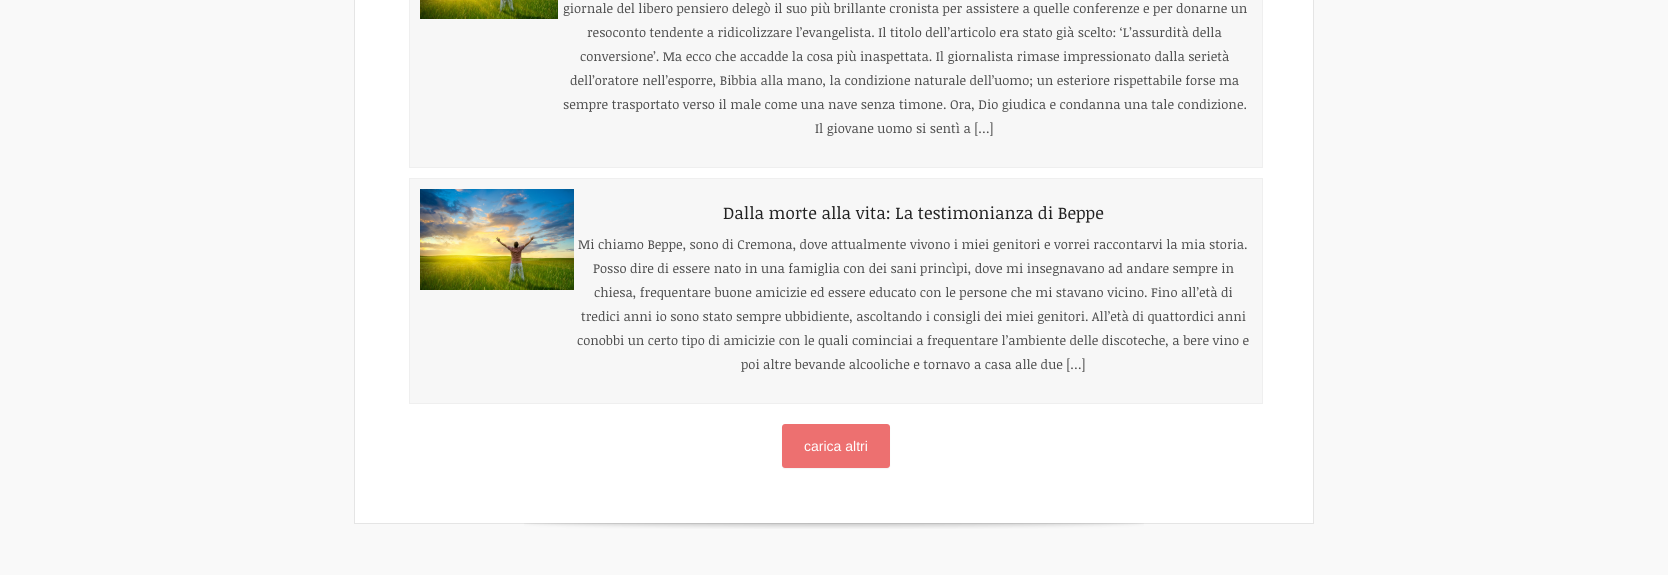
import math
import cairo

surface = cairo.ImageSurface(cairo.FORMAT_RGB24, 1668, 575)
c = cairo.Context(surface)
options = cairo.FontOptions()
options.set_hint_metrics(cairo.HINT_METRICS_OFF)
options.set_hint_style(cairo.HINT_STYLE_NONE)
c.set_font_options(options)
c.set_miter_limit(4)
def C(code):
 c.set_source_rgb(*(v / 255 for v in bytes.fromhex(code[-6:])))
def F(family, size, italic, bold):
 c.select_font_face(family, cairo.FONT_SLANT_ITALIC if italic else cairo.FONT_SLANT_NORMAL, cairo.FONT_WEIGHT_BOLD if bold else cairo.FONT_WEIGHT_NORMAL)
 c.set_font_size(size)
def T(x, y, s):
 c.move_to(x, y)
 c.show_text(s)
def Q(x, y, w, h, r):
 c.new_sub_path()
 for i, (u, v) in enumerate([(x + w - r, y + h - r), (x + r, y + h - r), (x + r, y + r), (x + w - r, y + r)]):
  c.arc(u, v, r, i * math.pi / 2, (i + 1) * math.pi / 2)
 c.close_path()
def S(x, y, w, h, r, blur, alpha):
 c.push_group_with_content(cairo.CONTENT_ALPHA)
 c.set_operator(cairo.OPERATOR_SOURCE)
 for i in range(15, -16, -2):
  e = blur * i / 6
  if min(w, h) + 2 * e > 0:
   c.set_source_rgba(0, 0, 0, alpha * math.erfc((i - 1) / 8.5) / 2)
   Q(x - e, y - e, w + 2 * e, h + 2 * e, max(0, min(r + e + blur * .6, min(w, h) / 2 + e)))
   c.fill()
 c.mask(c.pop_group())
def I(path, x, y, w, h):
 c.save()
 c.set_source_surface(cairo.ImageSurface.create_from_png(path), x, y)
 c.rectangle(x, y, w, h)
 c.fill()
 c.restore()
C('f9f9f9')
c.paint()
C('ffffff')
c.rectangle(354.5,-.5,959,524)
c.fill_preserve()
C('e5e5e5')
c.set_line_width(1)
c.stroke()
C('f7f7f7')
c.rectangle(409.5,-.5,853,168)
c.fill_preserve()
C('efefef')
c.stroke()
I('1.png',420,0,138,19)
F('Noticia Text',13,0,0)
C('4c4c4c')
T(563,13,'giornale del libero pensiero delegò il suo più brillante cronista per assistere a quelle conferenze e per donarne un')
T(587,37,'resoconto tendente a ridicolizzare l’evangelista. Il titolo dell’articolo era stato già scelto: ‘L’assurdità della')
T(580,61,'conversione’. Ma ecco che accadde la cosa più inaspettata. Il giornalista rimase impressionato dalla serietà')
T(570,85,'dell’oratore nell’esporre, Bibbia alla mano, la condizione naturale dell’uomo; un esteriore rispettabile forse ma')
T(563,109,'sempre trasportato verso il male come una nave senza timone. Ora, Dio giudica e condanna una tale condizione.')
T(815,133,'Il giovane uomo si sentì a […]')
C('f7f7f7')
c.rectangle(409.5,178.5,853,225)
c.fill_preserve()
C('efefef')
c.stroke()
I('2.png',420,189,154,101)
F('Noticia Text',17,0,0)
C('222222')
T(723,219,'Dalla morte alla vita: La testimonianza di Beppe')
F('Noticia Text',13,0,0)
C('4c4c4c')
T(578,249,'Mi chiamo Beppe, sono di Cremona, dove attualmente vivono i miei genitori e vorrei raccontarvi la mia storia.')
T(593,273,'Posso dire di essere nato in una famiglia con dei sani princìpi, dove mi insegnavano ad andare sempre in')
T(594,297,'chiesa, frequentare buone amicizie ed essere educato con le persone che mi stavano vicino. Fino all’età di')
T(581,321,'tredici anni io sono stato sempre ubbidiente, ascoltando i consigli dei miei genitori. All’età di quattordici anni')
T(577,345,'conobbi un certo tipo di amicizie con le quali cominciai a frequentare l’ambiente delle discoteche, a bere vino e')
T(741,369,'poi altre bevande alcooliche e tornavo a casa alle due […]')
C('000000')
S(782,425,108,44,3,.5,.05)
C('ed7070')
Q(782,424,108,44,3)
c.fill()
F('Liberation Sans',14,0,0)
C('ffffff')
T(804,451,'carica altri')
I('3.png',524,523,620,6)
surface.write_to_png('o.png')
